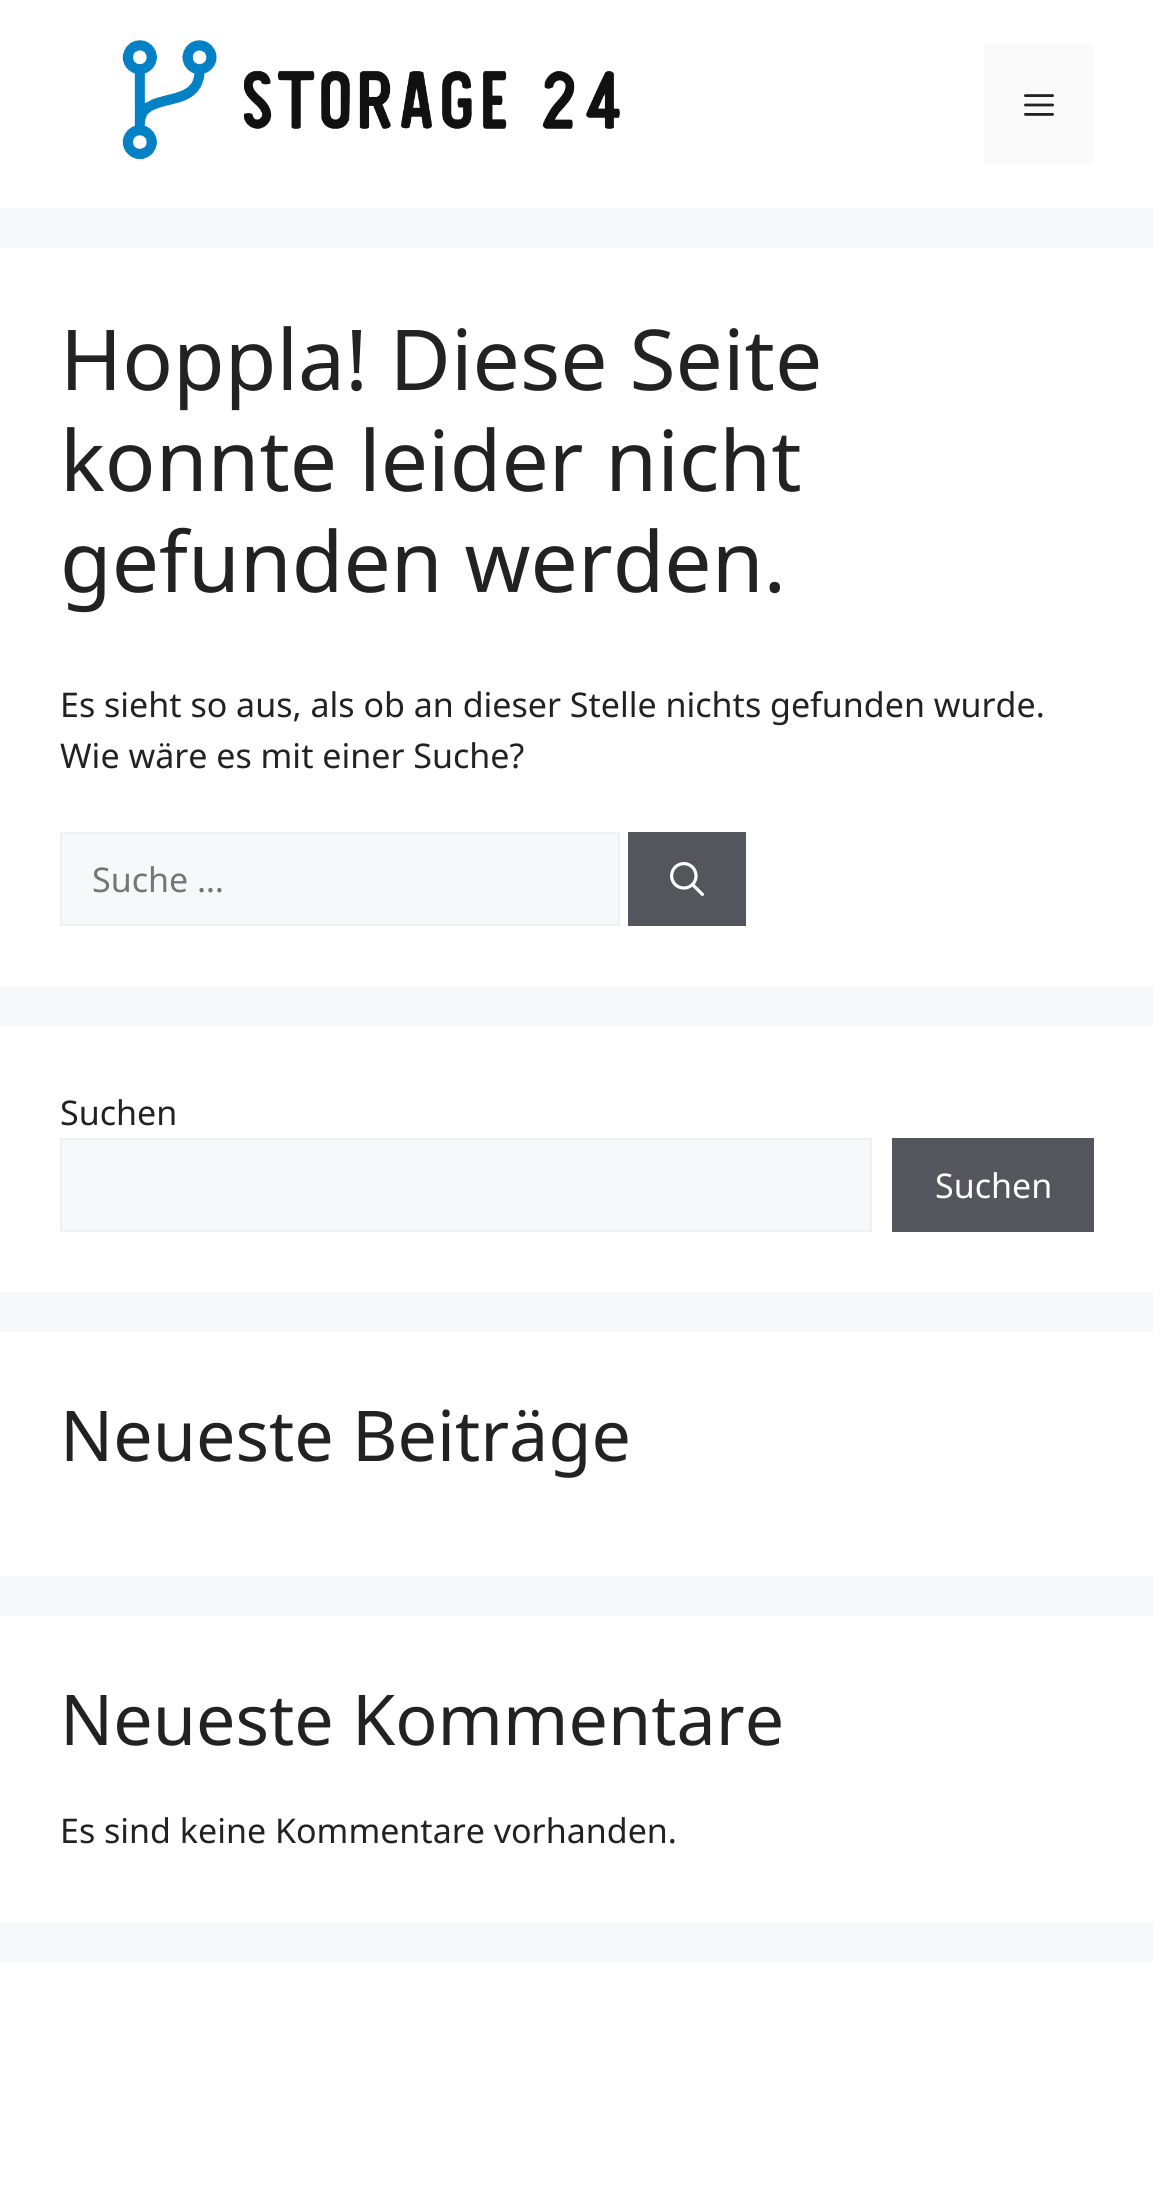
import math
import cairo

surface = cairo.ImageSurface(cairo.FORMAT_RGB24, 1153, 2188)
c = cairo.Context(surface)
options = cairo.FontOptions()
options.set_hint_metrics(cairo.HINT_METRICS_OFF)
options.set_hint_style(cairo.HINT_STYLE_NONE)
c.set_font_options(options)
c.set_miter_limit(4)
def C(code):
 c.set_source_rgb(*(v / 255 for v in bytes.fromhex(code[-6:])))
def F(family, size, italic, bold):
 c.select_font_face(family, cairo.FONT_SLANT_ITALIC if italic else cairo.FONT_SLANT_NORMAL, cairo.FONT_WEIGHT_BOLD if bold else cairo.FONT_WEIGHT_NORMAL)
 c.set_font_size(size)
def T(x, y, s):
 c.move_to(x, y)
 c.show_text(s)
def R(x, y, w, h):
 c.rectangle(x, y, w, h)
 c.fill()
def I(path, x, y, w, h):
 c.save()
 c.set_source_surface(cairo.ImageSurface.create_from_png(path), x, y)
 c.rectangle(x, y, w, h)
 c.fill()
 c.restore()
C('f7f8f9')
c.paint()
C('ffffff')
R(0,0,1153,208)
I('1.png',122,40,498,120)
C('fafafa')
R(984,44,110,120)
I('2.png',1024,94,30,22)
C('ffffff')
R(0,248,1153,738)
F('Noto Sans',84,0,0)
C('222222')
T(60,390,'Hoppla! Diese Seite')
T(60,491,'konnte leider nicht')
T(60,592,'gefunden werden.')
F('Noto Sans',34,0,0)
T(60,717,'Es sieht so aus, als ob an dieser Stelle nichts gefunden wurde.')
T(60,768,'Wie wäre es mit einer Suche?')
C('f7f8f9')
c.rectangle(61,833,558,92)
c.fill_preserve()
C('f0f0f0')
c.stroke()
C('757575')
T(92,892,'Suche …')
C('55555e')
R(628,832,118,94)
I('3.png',670,862,34,34)
C('ffffff')
R(0,1026,1153,266)
C('222222')
T(60,1125,'Suchen')
C('f7f8f9')
c.rectangle(61,1139,810,92)
c.fill_preserve()
C('f0f0f0')
c.stroke()
C('55555e')
R(892,1138,202,94)
C('ffffff')
T(935,1198,'Suchen')
R(0,1332,1153,244)
F('Noto Sans',70,0,0)
C('222222')
T(60,1461,'Neueste Beiträge')
C('ffffff')
R(0,1616,1153,306)
C('222222')
T(60,1745,'Neueste Kommentare')
F('Noto Sans',34,0,0)
T(60,1843,'Es sind keine Kommentare vorhanden.')
C('ffffff')
R(0,1962,1153,226)
surface.write_to_png('o.png')
